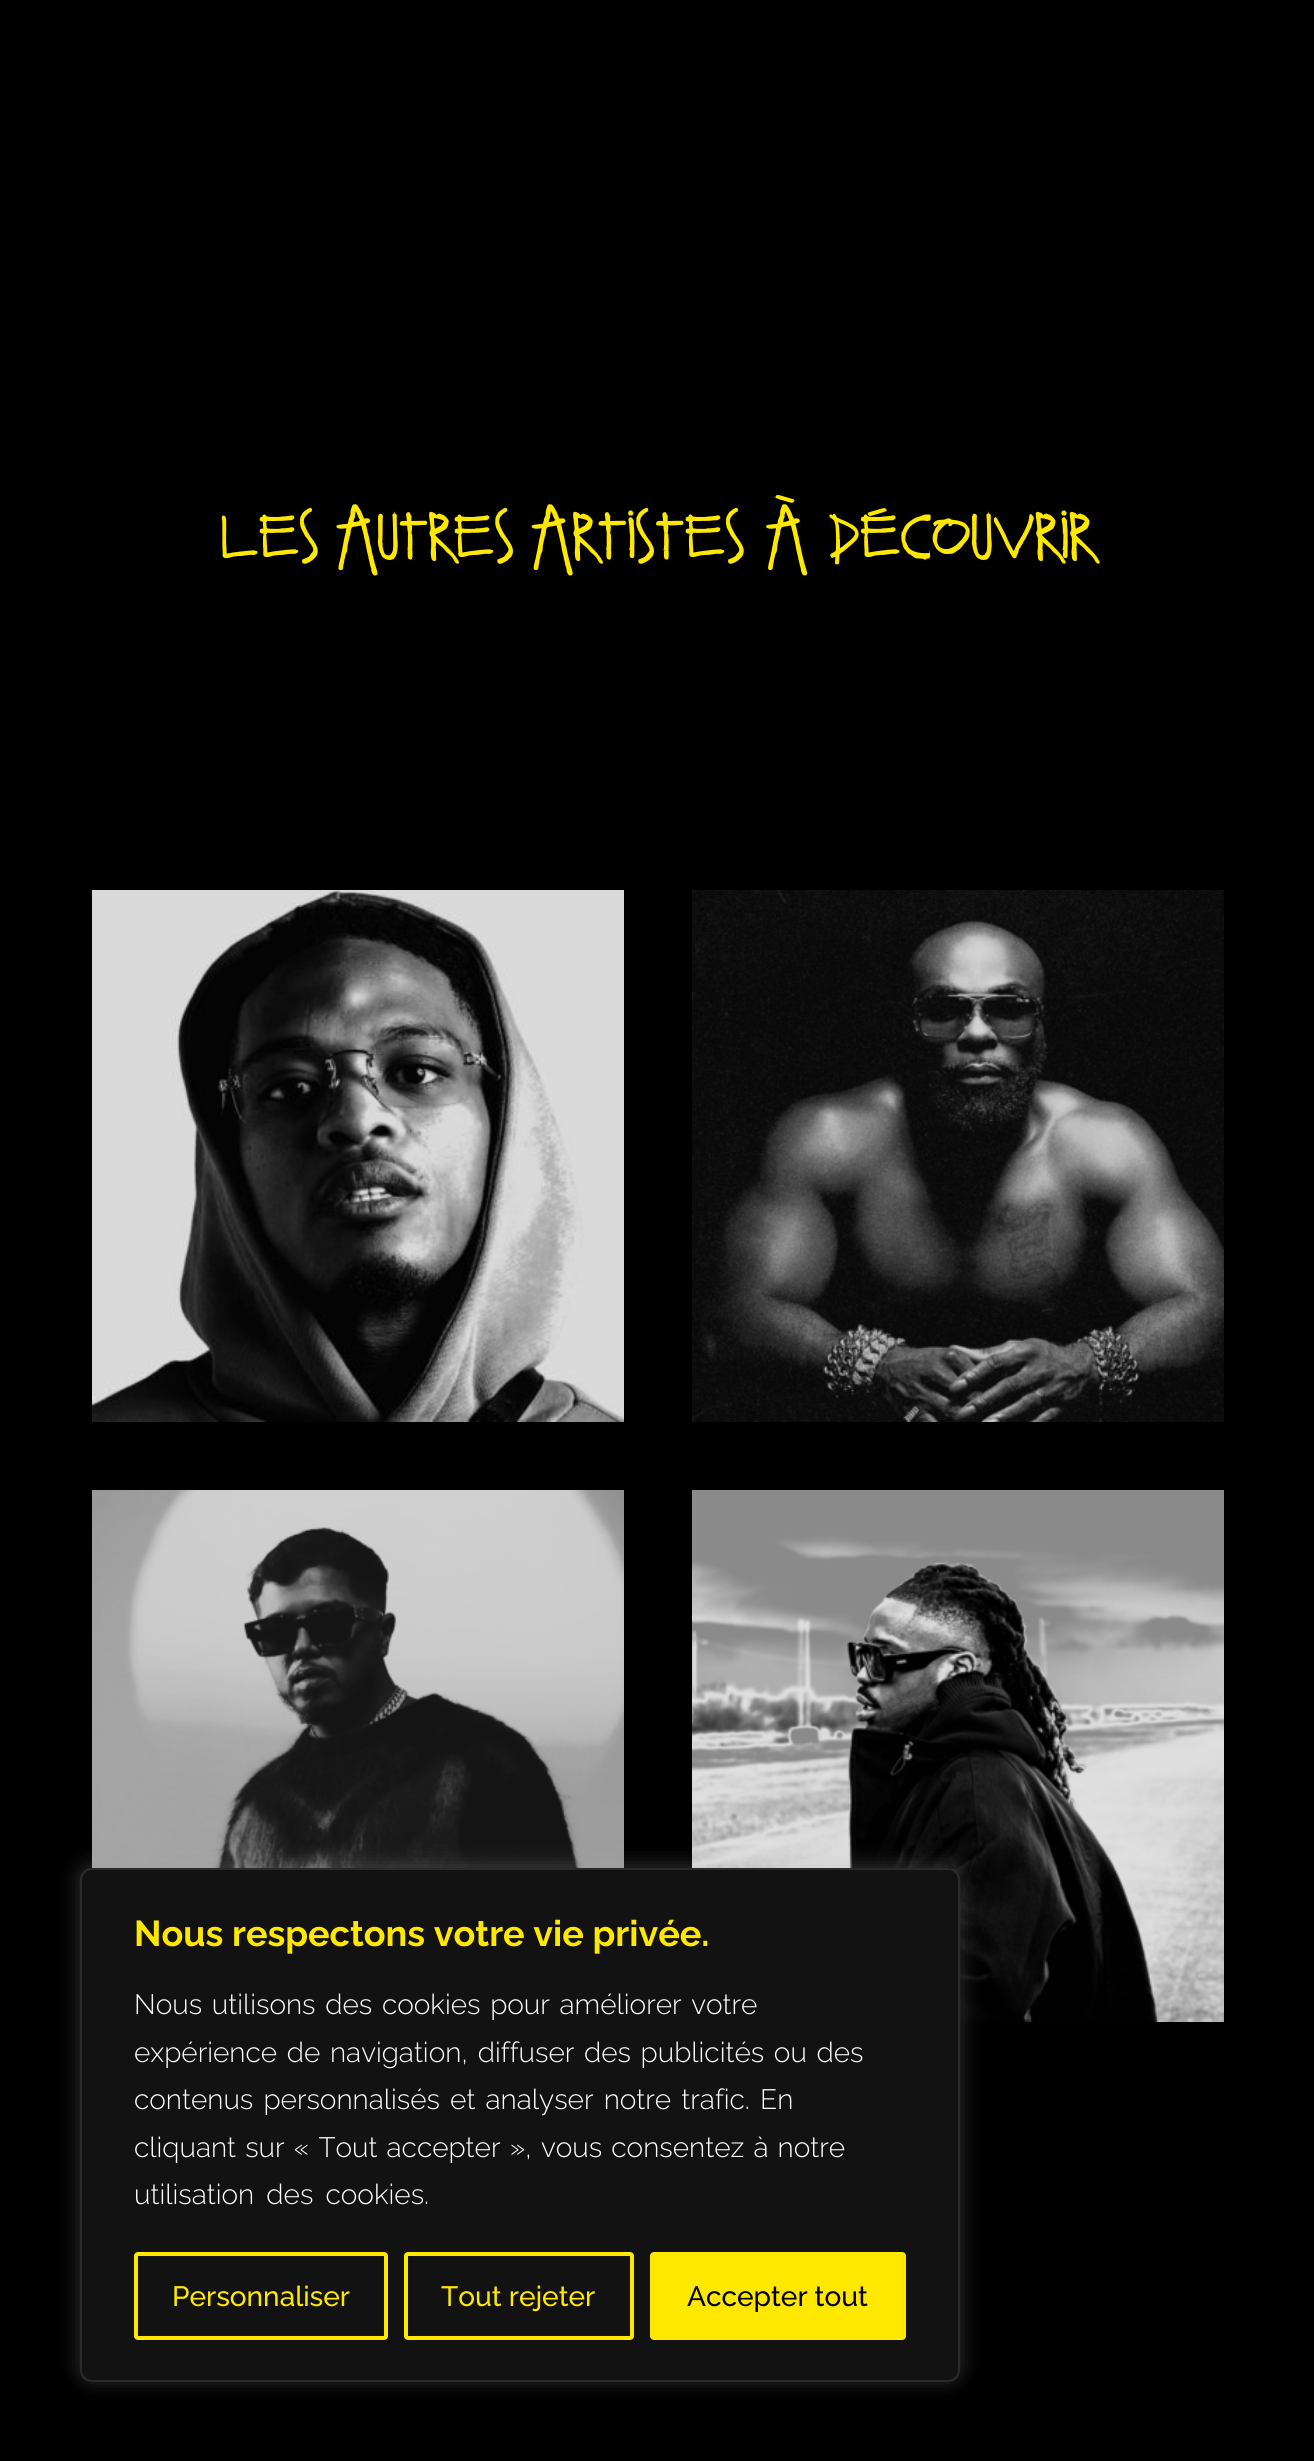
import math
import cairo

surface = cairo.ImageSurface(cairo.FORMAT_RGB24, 1314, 2461)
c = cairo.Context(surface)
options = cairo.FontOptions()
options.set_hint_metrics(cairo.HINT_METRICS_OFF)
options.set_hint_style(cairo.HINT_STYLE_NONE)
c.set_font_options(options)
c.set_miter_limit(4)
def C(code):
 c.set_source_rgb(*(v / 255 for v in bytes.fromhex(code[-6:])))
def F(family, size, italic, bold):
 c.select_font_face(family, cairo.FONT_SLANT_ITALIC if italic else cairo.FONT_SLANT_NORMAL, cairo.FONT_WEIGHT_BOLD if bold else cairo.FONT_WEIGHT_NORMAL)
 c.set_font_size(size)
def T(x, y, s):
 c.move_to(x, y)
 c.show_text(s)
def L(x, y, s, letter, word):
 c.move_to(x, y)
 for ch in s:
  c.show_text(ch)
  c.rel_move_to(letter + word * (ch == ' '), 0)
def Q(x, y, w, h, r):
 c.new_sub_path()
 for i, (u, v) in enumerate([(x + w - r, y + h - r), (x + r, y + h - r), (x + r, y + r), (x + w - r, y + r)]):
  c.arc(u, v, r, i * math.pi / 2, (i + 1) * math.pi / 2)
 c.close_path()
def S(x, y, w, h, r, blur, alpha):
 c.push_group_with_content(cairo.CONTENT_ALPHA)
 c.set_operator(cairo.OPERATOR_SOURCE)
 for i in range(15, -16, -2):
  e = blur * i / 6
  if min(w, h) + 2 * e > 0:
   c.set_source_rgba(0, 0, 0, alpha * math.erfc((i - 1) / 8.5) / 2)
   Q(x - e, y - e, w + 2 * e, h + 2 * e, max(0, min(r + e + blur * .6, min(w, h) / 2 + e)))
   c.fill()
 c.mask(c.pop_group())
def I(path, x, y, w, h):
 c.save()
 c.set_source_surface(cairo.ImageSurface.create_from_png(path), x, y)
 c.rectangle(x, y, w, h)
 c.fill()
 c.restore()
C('000000')
c.paint()
F('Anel',60,0,1)
C('ffe800')
T(220,558,'Les autres artistes à découvrir')
I('1.png',92,890,532,532)
I('2.png',692,890,532,532)
I('3.png',92,1490,532,378)
I('4.png',692,1490,532,532)
C('acabab')
S(80,1866,880,514,12,10,.3)
C('121212')
Q(81,1869,878,512,11)
c.fill_preserve()
C('2a2a2a')
c.stroke()
F('Raleway',36,0,1)
C('ffe800')
T(134,1946,'Nous respectons votre vie privée.')
F('Raleway Light',28,0,0)
C('ffffff')
L(134,2014,'Nous utilisons des cookies pour améliorer votre',0,2.5)
L(134,2062,'expérience de navigation, diffuser des publicités ou des',0,2.5)
L(134,2109,'contenus personnalisés et analyser notre trafic. En',0,3)
L(134,2157,'cliquant sur « Tout accepter », vous consentez à notre',0,2)
L(134,2204,'utilisation des cookies.',0,5)
Q(136,2254,250,84,2)
C('ffe800')
c.set_line_width(4)
c.stroke()
F('Raleway Medium',28,0,0)
T(172,2306,'Personnaliser')
Q(406,2254,226,84,2)
c.stroke()
T(441,2306,'Tout rejeter')
Q(652,2254,252,84,2)
c.fill_preserve()
c.stroke()
C('000000')
T(687,2306,'Accepter tout')
surface.write_to_png('o.png')
